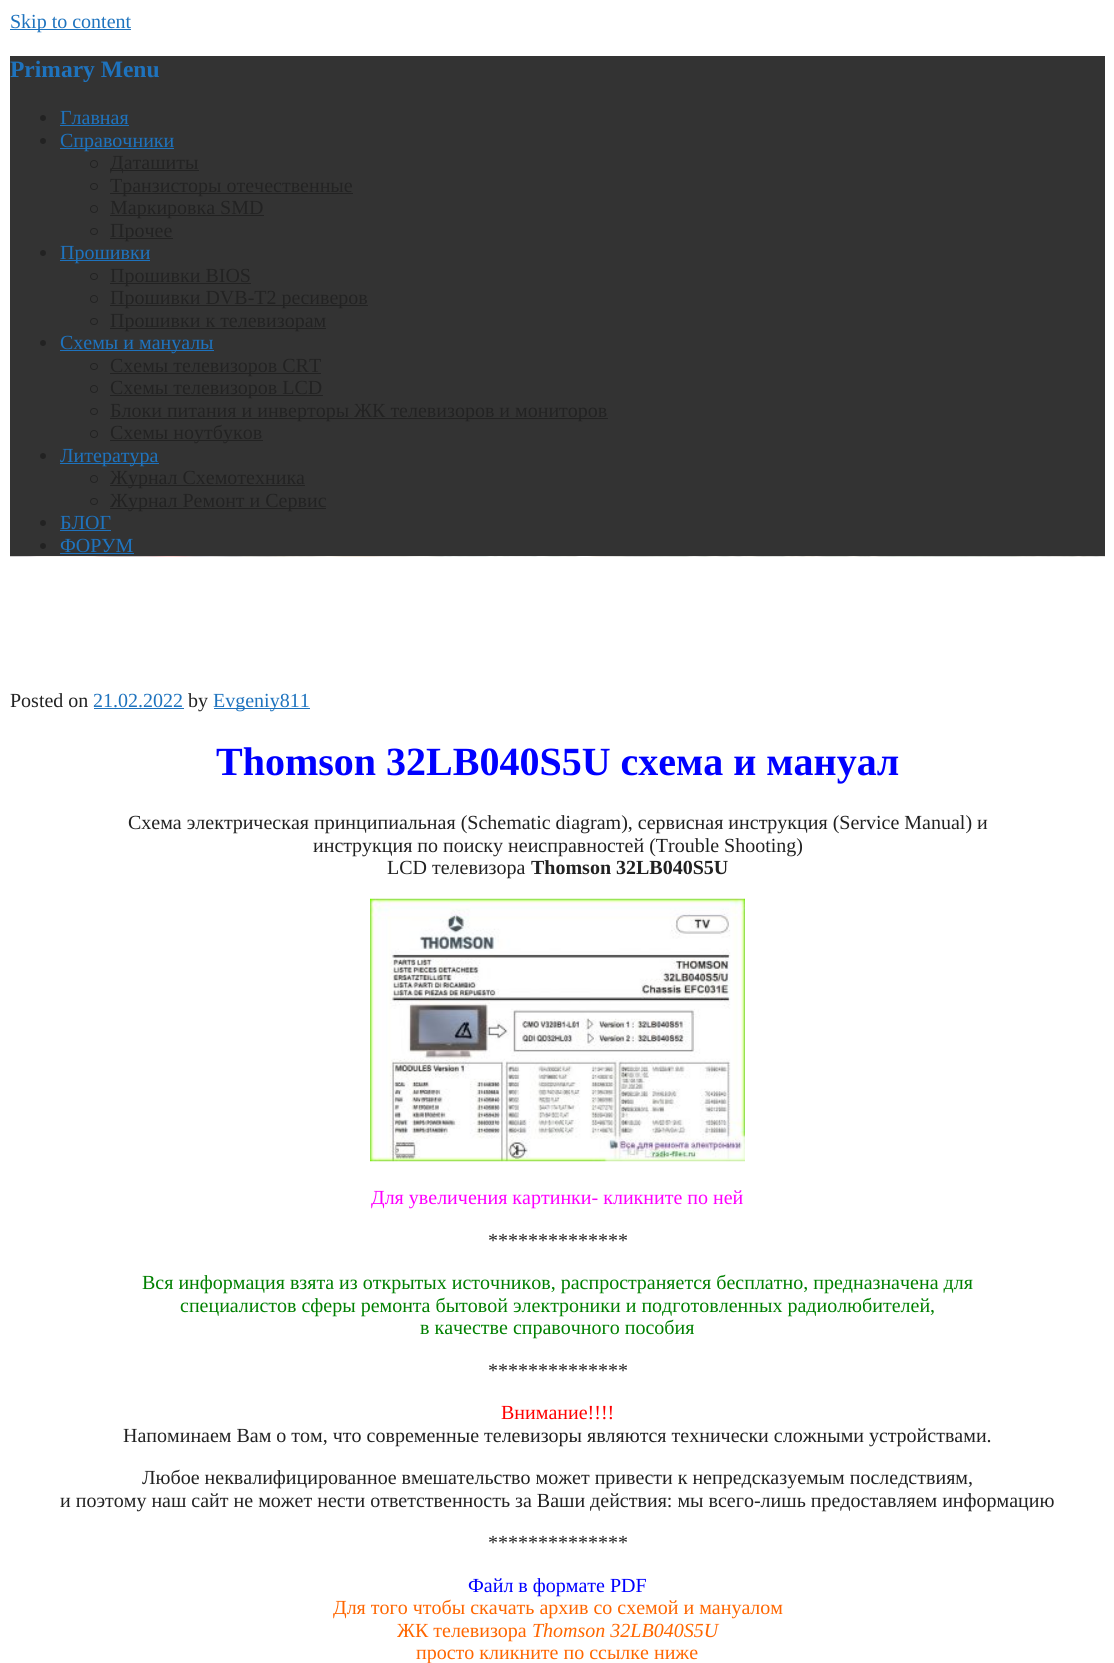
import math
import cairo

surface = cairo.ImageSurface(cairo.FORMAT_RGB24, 1114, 1663)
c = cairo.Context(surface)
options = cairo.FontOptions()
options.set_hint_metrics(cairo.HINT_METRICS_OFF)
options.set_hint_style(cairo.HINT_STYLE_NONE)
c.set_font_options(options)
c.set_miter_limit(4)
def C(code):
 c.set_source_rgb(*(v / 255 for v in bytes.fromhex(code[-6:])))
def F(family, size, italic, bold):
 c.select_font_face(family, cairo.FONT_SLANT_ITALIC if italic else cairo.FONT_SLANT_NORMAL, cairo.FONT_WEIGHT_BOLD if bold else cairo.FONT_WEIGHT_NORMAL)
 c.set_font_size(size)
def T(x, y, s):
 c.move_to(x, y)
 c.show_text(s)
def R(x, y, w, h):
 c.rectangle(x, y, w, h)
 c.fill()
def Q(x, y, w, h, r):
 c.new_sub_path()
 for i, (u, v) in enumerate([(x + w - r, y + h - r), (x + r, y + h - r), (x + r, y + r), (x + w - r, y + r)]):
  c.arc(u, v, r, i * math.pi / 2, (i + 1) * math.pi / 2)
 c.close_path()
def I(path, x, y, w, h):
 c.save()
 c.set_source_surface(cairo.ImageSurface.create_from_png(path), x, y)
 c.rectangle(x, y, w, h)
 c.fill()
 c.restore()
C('ffffff')
c.paint()
C('1e73be')
R(10,29,121,1)
F('Liberation Serif',20,0,0)
T(10,28,'Skip to content')
I('1.png',10,556,1095,1)
C('333333')
R(10,56,1095,500)
F('Liberation Serif',23.5,0,1)
C('1e73be')
T(10,77,'Primary Menu')
C('222222')
c.new_path()
c.arc(43,118,3,0,2 * math.pi)
c.fill()
F('Liberation Serif',20,0,0)
C('1e73be')
T(60,124,'Главная')
R(60,125,69,1)
C('222222')
c.new_path()
c.arc(43,141,3,0,2 * math.pi)
c.fill()
C('1e73be')
R(60,148,114,1)
T(60,147,'Справочники')
c.new_path()
c.arc(94,164,3.5,0,2 * math.pi)
C('222222')
c.set_line_width(1)
c.stroke()
R(110,170,89,1)
T(110,169,'Даташиты')
Q(90.5,183.5,7,6,3)
c.stroke()
R(110,193,243,1)
T(110,192,'Транзисторы отечественные')
c.new_path()
c.arc(94,209,3.5,0,2 * math.pi)
c.stroke()
R(110,215,154,1)
T(110,214,'Маркировка SMD')
Q(90.5,228.5,7,6,3)
c.stroke()
R(110,238,63,1)
T(110,237,'Прочее')
c.new_path()
c.arc(43,253,3,0,2 * math.pi)
c.fill()
C('1e73be')
R(60,260,90,1)
T(60,259,'Прошивки')
Q(90.5,273.5,7,6,3)
C('222222')
c.stroke()
R(110,283,141,1)
T(110,282,'Прошивки BIOS')
c.new_path()
c.arc(94,299,3.5,0,2 * math.pi)
c.stroke()
R(110,305,258,1)
T(110,304,'Прошивки DVB-T2 ресиверов')
Q(90.5,318.5,7,6,3)
c.stroke()
R(110,328,216,1)
T(110,327,'Прошивки к телевизорам')
c.new_path()
c.arc(43,343,3,0,2 * math.pi)
c.fill()
C('1e73be')
R(60,350,154,1)
T(60,349,'Схемы и мануалы')
Q(90.5,363.5,7,6,3)
C('222222')
c.stroke()
R(110,373,211,1)
T(110,372,'Схемы телевизоров CRT')
c.new_path()
c.arc(94,389,3.5,0,2 * math.pi)
c.stroke()
R(110,395,213,1)
T(110,394,'Схемы телевизоров LCD')
Q(90.5,408.5,7,6,3)
c.stroke()
R(110,418,498,1)
T(110,417,'Блоки питания и инверторы ЖК телевизоров и мониторов')
c.new_path()
c.arc(94,434,3.5,0,2 * math.pi)
c.stroke()
R(110,440,153,1)
T(110,439,'Схемы ноутбуков')
c.new_path()
c.arc(43,456,3,0,2 * math.pi)
c.fill()
C('1e73be')
R(60,463,99,1)
T(60,462,'Литература')
c.new_path()
c.arc(94,479,3.5,0,2 * math.pi)
C('222222')
c.stroke()
R(110,485,195,1)
T(110,484,'Журнал Схемотехника')
Q(90.5,498.5,7,6,3)
c.stroke()
R(110,508,216,1)
T(110,507,'Журнал Ремонт и Сервис')
c.new_path()
c.arc(43,523,3,0,2 * math.pi)
c.fill()
C('1e73be')
T(60,529,'БЛОГ')
R(60,530,51,1)
C('222222')
c.new_path()
c.arc(43,546,3,0,2 * math.pi)
c.fill()
C('1e73be')
T(60,552,'ФОРУМ')
R(60,553,74,1)
C('222222')
T(10,707,'Posted on')
C('1e73be')
T(93,707,'21.02.2022')
R(94,708,90,1)
C('222222')
T(188,707,'by')
C('1e73be')
R(214,708,96,1)
T(213,707,'Evgeniy811')
F('Liberation Serif',40,0,1)
C('0000ff')
T(216,775,'Thomson 32LB040S5U схема и мануал')
F('Liberation Serif',20,0,0)
C('222222')
T(128,829,'Схема электрическая принципиальная (Schematic diagram), сервисная инструкция (Service Manual) и')
T(313,852,'инструкция по поиску неисправностей (Trouble Shooting)')
T(387,874,'LCD телевизора')
F('Liberation Serif',20,0,1)
T(531,874,'Thomson 32LB040S5U')
I('2.png',370,898,375,264)
F('Liberation Serif',20,0,0)
C('ff00ff')
T(371,1204,'Для увеличения картинки- кликните по ней')
C('222222')
T(488,1247,'**************')
C('008000')
T(142,1289,'Вся информация взята из открытых источников, распространяется бесплатно, предназначена для')
T(180,1312,'специалистов сферы ремонта бытовой электроники и подготовленных радиолюбителей,')
T(420,1334,'в качестве справочного пособия')
C('222222')
T(488,1377,'**************')
C('ff0000')
T(501,1419,'Внимание!!!!')
C('222222')
T(123,1442,'Напоминаем Вам о том, что современные телевизоры являются технически сложными устройствами.')
T(142,1484,'Любое неквалифицированное вмешательство может привести к непредсказуемым последствиям,')
T(60,1507,'и поэтому наш сайт не может нести ответственность за Ваши действия: мы всего-лишь предоставляем информацию')
T(488,1549,'**************')
C('0000ff')
T(468,1592,'Файл в формате PDF')
C('ff6600')
T(333,1614,'Для того чтобы скачать архив со схемой и мануалом')
T(397,1637,'ЖК телевизора')
F('Liberation Serif',20,1,0)
T(532,1637,'Thomson 32LB040S5U')
F('Liberation Serif',20,0,0)
T(416,1659,'просто кликните по ссылке ниже')
surface.write_to_png('o.png')
